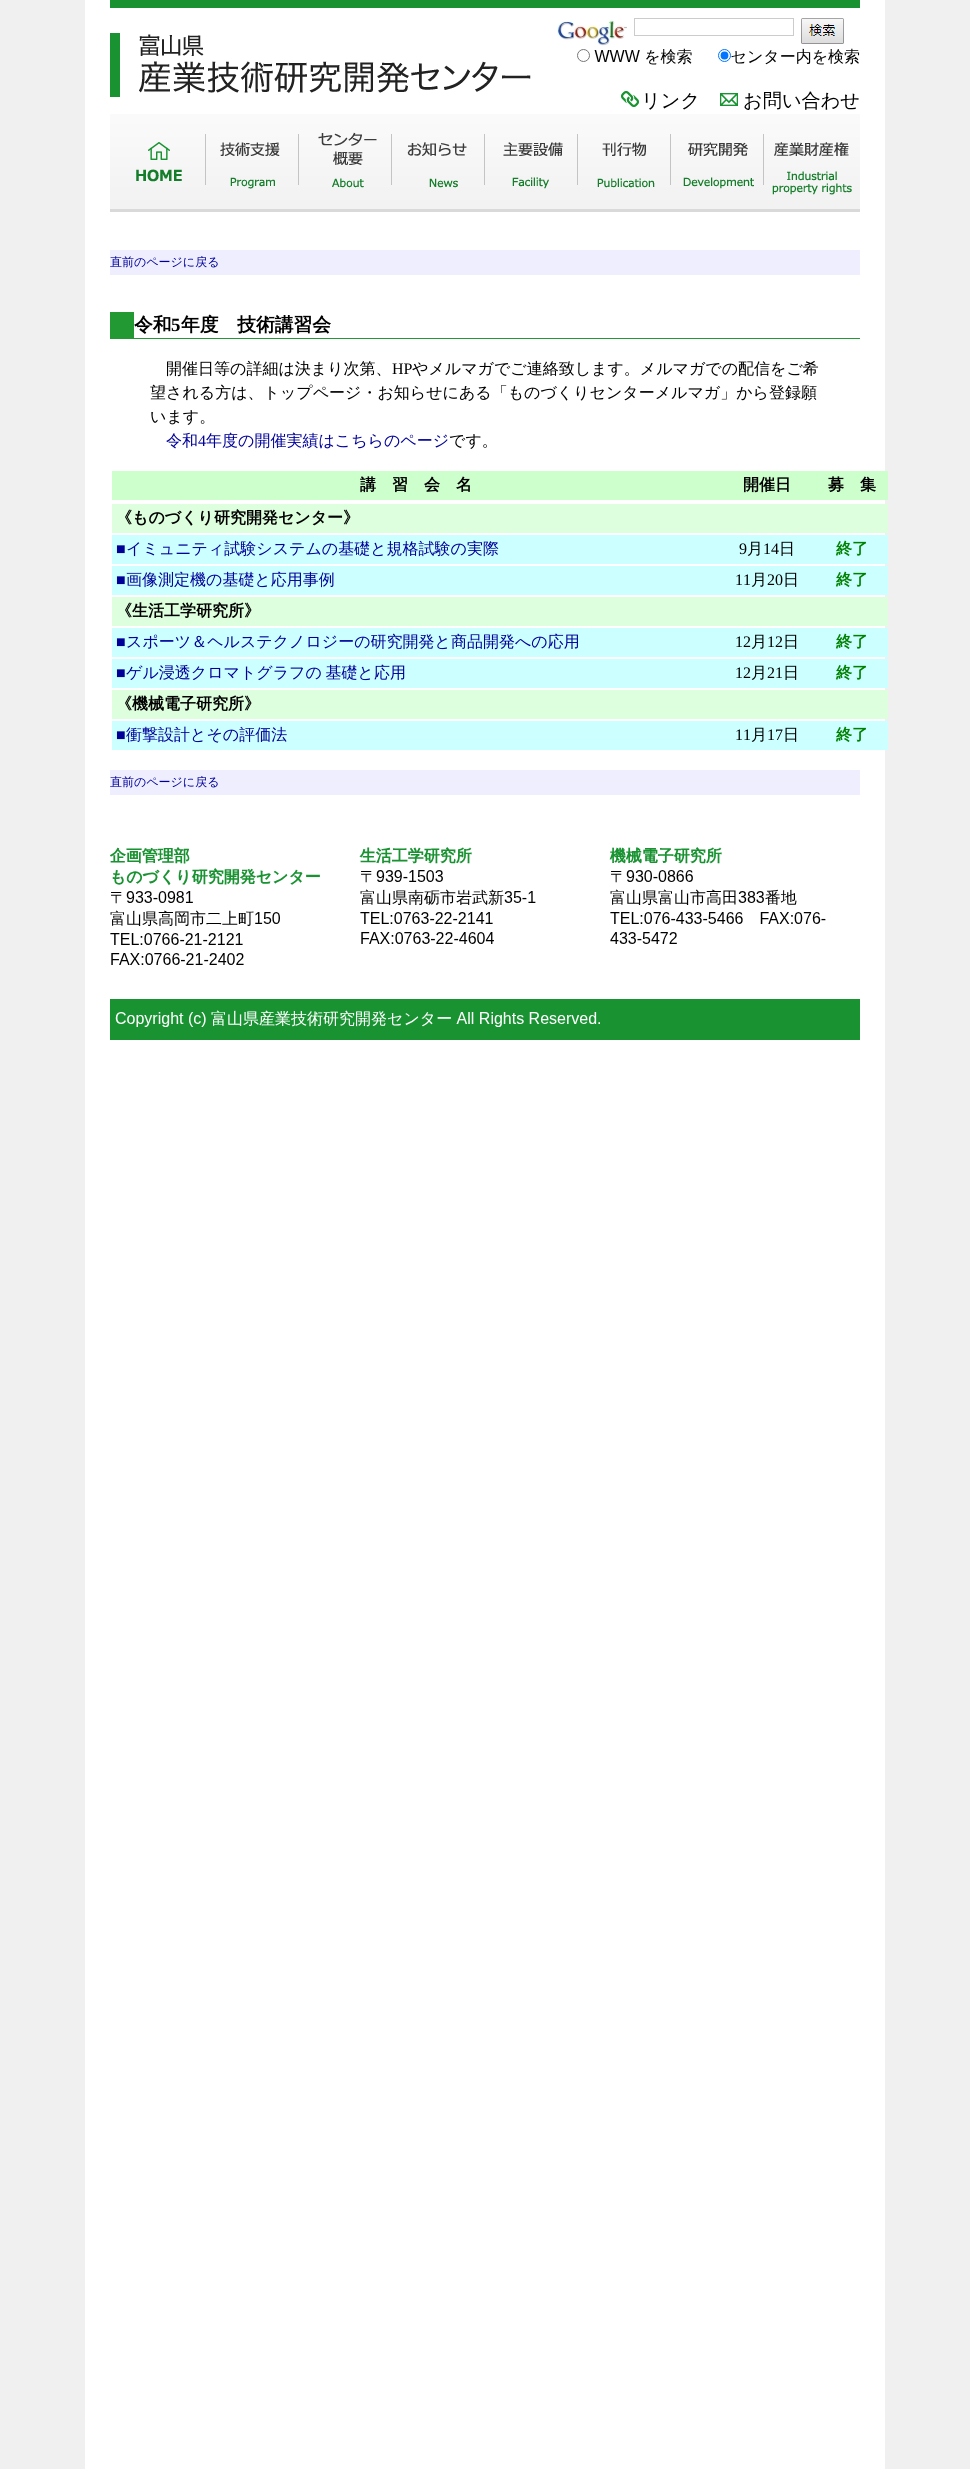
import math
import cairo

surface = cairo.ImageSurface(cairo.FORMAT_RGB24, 970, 2469)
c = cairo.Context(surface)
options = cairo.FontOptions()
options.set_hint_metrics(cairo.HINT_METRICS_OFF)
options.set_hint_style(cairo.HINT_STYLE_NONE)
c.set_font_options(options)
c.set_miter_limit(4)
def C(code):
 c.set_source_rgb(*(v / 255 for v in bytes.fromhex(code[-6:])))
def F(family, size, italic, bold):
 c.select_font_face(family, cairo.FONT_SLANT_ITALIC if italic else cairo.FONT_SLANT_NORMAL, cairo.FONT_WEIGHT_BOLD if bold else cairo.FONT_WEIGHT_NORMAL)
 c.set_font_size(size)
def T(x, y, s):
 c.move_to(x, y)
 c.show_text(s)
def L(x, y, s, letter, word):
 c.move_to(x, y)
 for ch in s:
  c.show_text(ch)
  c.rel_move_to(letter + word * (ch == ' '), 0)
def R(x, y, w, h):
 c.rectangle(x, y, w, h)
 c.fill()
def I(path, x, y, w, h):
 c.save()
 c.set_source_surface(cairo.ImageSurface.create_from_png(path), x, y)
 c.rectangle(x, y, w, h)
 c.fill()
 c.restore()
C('f0f0f0')
c.paint()
C('ffffff')
R(85,0,800,2469)
I('1.png',110,0,750,212)
C('eeeeff')
R(110,250,750,25)
F('WenQuanYi Zen Hei Medium',12,0,0)
C('000099')
T(110,266,'直前のページに戻る')
C('229933')
R(134,338,726,1)
R(110,312,24,27)
F('WenQuanYi Zen Hei',18.75,0,1)
C('000000')
T(134,331,'令和')
F('Liberation Serif',18.75,0,1)
T(171,331,'5')
F('WenQuanYi Zen Hei',18.75,0,1)
T(181,331,'年度　技術講習会')
F('WenQuanYi Zen Hei Medium',16,0,0)
T(166,374,'開催日等の詳細は決まり次第、')
F('Liberation Serif',16,0,0)
T(392,374,'HP')
F('WenQuanYi Zen Hei Medium',16,0,0)
T(412,374,'やメルマガでご連絡致します。メルマガでの配信をご希')
T(150,398,'望される方は、トップページ・お知らせにある「ものづくりセンターメルマガ」から登録願')
T(150,422,'います。')
C('000099')
T(166,446,'令和')
F('Liberation Serif',16,0,0)
T(198,446,'4')
F('WenQuanYi Zen Hei Medium',16,0,0)
T(206,446,'年度の開催実績はこちらのページ')
C('000000')
T(449,446,'です。')
C('ccffcc')
R(112,471,776,29)
F('WenQuanYi Zen Hei',16,0,1)
C('000000')
T(360,490,'講　習　会　名')
T(743,490,'開催日')
T(828,490,'募　集')
C('ddffdd')
R(112,504,776,29)
C('000000')
T(116,523,'《ものづくり研究開発センター》')
C('ccffff')
R(112,535,776,29)
F('Liberation Serif',16,0,0)
C('000099')
T(116,554,'■')
F('WenQuanYi Zen Hei Medium',16,0,0)
T(126,554,'イミュニティ試験システムの基礎と規格試験の実際')
F('Liberation Serif',16,0,0)
C('000000')
T(739,554,'9')
F('WenQuanYi Zen Hei Medium',16,0,0)
T(747,554,'月')
F('Liberation Serif',16,0,0)
T(763,554,'14')
F('WenQuanYi Zen Hei Medium',16,0,0)
T(779,554,'日')
F('WenQuanYi Zen Hei',16,0,1)
C('008000')
T(836,554,'終了')
C('ccffff')
R(112,566,776,29)
F('Liberation Serif',16,0,0)
C('000099')
T(116,585,'■')
F('WenQuanYi Zen Hei Medium',16,0,0)
T(126,585,'画像測定機の基礎と応用事例')
F('Liberation Serif',16,0,0)
C('000000')
T(735,585,'11')
F('WenQuanYi Zen Hei Medium',16,0,0)
T(751,585,'月')
F('Liberation Serif',16,0,0)
T(767,585,'20')
F('WenQuanYi Zen Hei Medium',16,0,0)
T(783,585,'日')
F('WenQuanYi Zen Hei',16,0,1)
C('008000')
T(836,585,'終了')
C('ddffdd')
R(112,597,776,29)
C('000000')
T(116,616,'《生活工学研究所》')
C('ccffff')
R(112,628,776,29)
F('Liberation Serif',16,0,0)
C('000099')
T(116,647,'■')
F('WenQuanYi Zen Hei Medium',16,0,0)
T(126,647,'スポーツ＆ヘルステクノロジーの研究開発と商品開発への応用')
F('Liberation Serif',16,0,0)
C('000000')
T(735,647,'12')
F('WenQuanYi Zen Hei Medium',16,0,0)
T(751,647,'月')
F('Liberation Serif',16,0,0)
T(767,647,'12')
F('WenQuanYi Zen Hei Medium',16,0,0)
T(783,647,'日')
F('WenQuanYi Zen Hei',16,0,1)
C('008000')
T(836,647,'終了')
C('ccffff')
R(112,659,776,29)
F('Liberation Serif',16,0,0)
C('000099')
T(116,678,'■')
F('WenQuanYi Zen Hei Medium',16,0,0)
L(126,678,'ゲル浸透クロマトグラフの 基礎と応用',0,-1)
F('Liberation Serif',16,0,0)
C('000000')
T(735,678,'12')
F('WenQuanYi Zen Hei Medium',16,0,0)
T(751,678,'月')
F('Liberation Serif',16,0,0)
T(767,678,'21')
F('WenQuanYi Zen Hei Medium',16,0,0)
T(783,678,'日')
F('WenQuanYi Zen Hei',16,0,1)
C('008000')
T(836,678,'終了')
C('ddffdd')
R(112,690,776,29)
C('000000')
T(116,709,'《機械電子研究所》')
C('ccffff')
R(112,721,776,29)
F('Liberation Serif',16,0,0)
C('000099')
T(116,740,'■')
F('WenQuanYi Zen Hei Medium',16,0,0)
T(126,740,'衝撃設計とその評価法')
F('Liberation Serif',16,0,0)
C('000000')
T(735,740,'11')
F('WenQuanYi Zen Hei Medium',16,0,0)
T(751,740,'月')
F('Liberation Serif',16,0,0)
T(767,740,'17')
F('WenQuanYi Zen Hei Medium',16,0,0)
T(783,740,'日')
F('WenQuanYi Zen Hei',16,0,1)
C('008000')
T(836,740,'終了')
C('eeeeff')
R(110,770,750,25)
F('WenQuanYi Zen Hei Medium',12,0,0)
C('000099')
T(110,786,'直前のページに戻る')
I('2.png',110,847,750,193)
surface.write_to_png('o.png')
